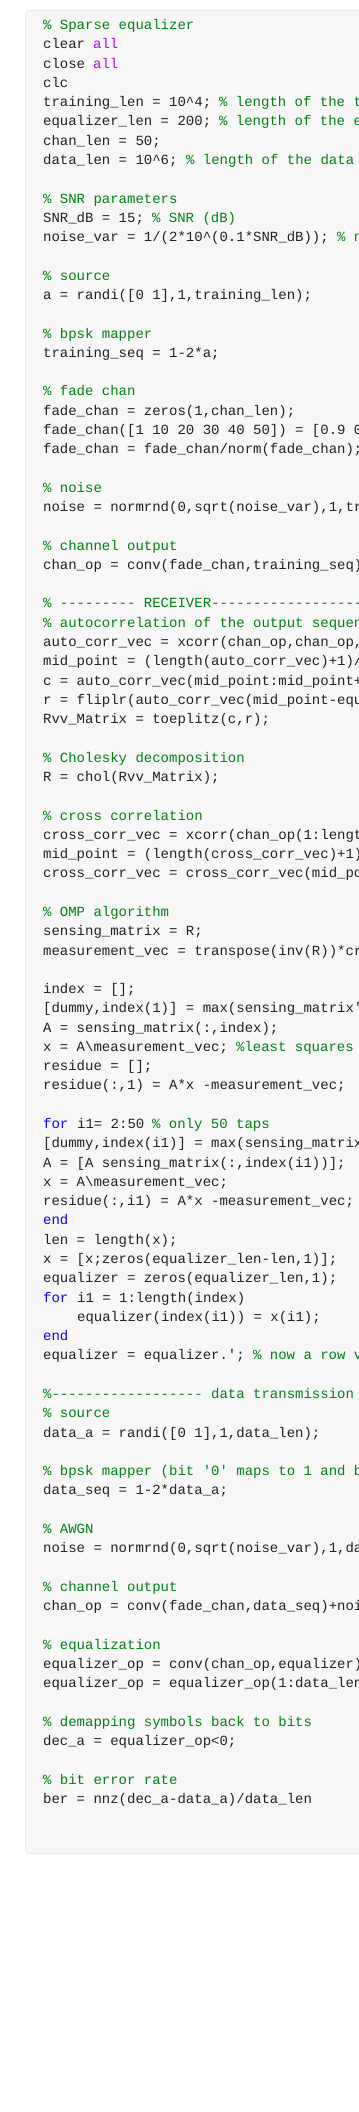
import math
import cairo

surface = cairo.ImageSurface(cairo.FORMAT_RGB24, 359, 2112)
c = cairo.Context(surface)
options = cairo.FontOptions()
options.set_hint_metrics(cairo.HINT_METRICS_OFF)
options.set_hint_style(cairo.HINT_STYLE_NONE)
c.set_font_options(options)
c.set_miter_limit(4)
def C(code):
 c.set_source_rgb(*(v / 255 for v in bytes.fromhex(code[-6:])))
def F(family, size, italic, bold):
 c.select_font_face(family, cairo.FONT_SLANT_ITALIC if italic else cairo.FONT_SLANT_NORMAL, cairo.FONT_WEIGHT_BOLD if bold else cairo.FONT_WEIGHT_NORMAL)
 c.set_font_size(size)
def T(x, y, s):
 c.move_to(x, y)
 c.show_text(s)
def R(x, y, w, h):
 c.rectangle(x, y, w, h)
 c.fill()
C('ffffff')
c.paint()
C('f7f7f7')
c.new_path()
c.move_to(29,10)
c.line_to(359,10)
c.line_to(359,1854)
c.line_to(29,1854)
c.curve_to(27,1854,25,1852,25,1850)
c.line_to(25,14)
c.curve_to(25,12,27,10,29,10)
c.close_path()
c.fill()
C('e9e9e9')
c.set_fill_rule(cairo.FILL_RULE_EVEN_ODD)
c.new_path()
c.move_to(29,10)
c.line_to(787,10)
c.curve_to(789,10,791,12,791,14)
c.line_to(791,35)
c.line_to(25,35)
c.line_to(25,14)
c.curve_to(25,12,27,10,29,10)
c.close_path()
c.move_to(29,11)
c.line_to(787,11)
c.curve_to(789,11,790,12,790,14)
c.line_to(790,35)
c.line_to(26,35)
c.line_to(26,14)
c.curve_to(26,12,27,11,29,11)
c.close_path()
c.fill()
F('Liberation Mono',14,0,0)
C('008013')
T(43,29,'% Sparse equalizer')
C('e9e9e9')
R(25,35,1,1793)
C('212121')
T(43,48,'clear')
C('a709f5')
T(93,48,'all')
C('212121')
T(43,68,'close')
C('a709f5')
T(93,68,'all')
C('212121')
T(43,87,'clc')
T(43,106,'training_len = 10^4;')
C('008013')
T(219,106,'% length of the t')
C('212121')
T(43,125,'equalizer_len = 200;')
C('008013')
T(219,125,'% length of the e')
C('212121')
T(43,145,'chan_len = 50;')
T(43,164,'data_len = 10^6;')
C('008013')
T(186,164,'% length of the data')
T(43,203,'% SNR parameters')
C('212121')
T(43,222,'SNR_dB = 15;')
C('008013')
T(152,222,'% SNR (dB)')
C('212121')
T(43,241,'noise_var = 1/(2*10^(0.1*SNR_dB));')
C('008013')
T(337,241,'% n')
T(43,280,'% source')
C('212121')
T(43,299,'a = randi([0 1],1,training_len);')
C('008013')
T(43,338,'% bpsk mapper')
C('212121')
T(43,357,'training_seq = 1-2*a;')
C('008013')
T(43,395,'% fade chan')
C('212121')
T(43,415,'fade_chan = zeros(1,chan_len);')
T(43,434,'fade_chan([1 10 20 30 40 50]) = [0.9 0')
T(43,453,'fade_chan = fade_chan/norm(fade_chan);')
C('008013')
T(43,492,'% noise')
C('212121')
T(43,511,'noise = normrnd(0,sqrt(noise_var),1,tr')
C('008013')
T(43,550,'% channel output')
C('212121')
T(43,569,'chan_op = conv(fade_chan,training_seq)')
C('008013')
T(43,607,'% --------- RECEIVER------------------')
T(43,627,'% autocorrelation of the output sequen')
C('212121')
T(43,646,'auto_corr_vec = xcorr(chan_op,chan_op,')
T(43,665,'mid_point = (length(auto_corr_vec)+1)/')
T(43,685,'c = auto_corr_vec(mid_point:mid_point+')
T(43,704,'r = fliplr(auto_corr_vec(mid_point-equ')
T(43,723,'Rvv_Matrix = toeplitz(c,r);')
C('008013')
T(43,762,'% Cholesky decomposition')
C('212121')
T(43,781,'R = chol(Rvv_Matrix);')
C('008013')
T(43,820,'% cross correlation')
C('212121')
T(43,839,'cross_corr_vec = xcorr(chan_op(1:lengt')
T(43,858,'mid_point = (length(cross_corr_vec)+1)')
T(43,877,'cross_corr_vec = cross_corr_vec(mid_po')
C('008013')
T(43,916,'% OMP algorithm')
C('212121')
T(43,935,'sensing_matrix = R;')
T(43,955,'measurement_vec = transpose(inv(R))*cr')
T(43,993,'index = [];')
T(43,1012,'[dummy,index(1)] = max(sensing_matrix\'')
T(43,1032,'A = sensing_matrix(:,index);')
T(43,1051,'x = A\\measurement_vec;')
C('008013')
T(236,1051,'%least squares')
C('212121')
T(43,1070,'residue = [];')
T(43,1089,'residue(:,1) = A*x -measurement_vec;')
C('0e00ff')
T(43,1128,'for')
C('212121')
T(77,1128,'i1= 2:50')
C('008013')
T(152,1128,'% only 50 taps')
C('212121')
T(43,1147,'[dummy,index(i1)] = max(sensing_matrix')
T(43,1167,'A = [A sensing_matrix(:,index(i1))];')
T(43,1186,'x = A\\measurement_vec;')
T(43,1205,'residue(:,i1) = A*x -measurement_vec;')
C('0e00ff')
T(43,1224,'end')
C('212121')
T(43,1244,'len = length(x);')
T(43,1263,'x = [x;zeros(equalizer_len-len,1)];')
T(43,1282,'equalizer = zeros(equalizer_len,1);')
C('0e00ff')
T(43,1302,'for')
C('212121')
T(77,1302,'i1 = 1:length(index)')
T(77,1321,'equalizer(index(i1)) = x(i1);')
C('0e00ff')
T(43,1340,'end')
C('212121')
T(43,1359,'equalizer = equalizer.\';')
C('008013')
T(253,1359,'% now a row v')
T(43,1398,'%------------------ data transmission')
T(43,1417,'% source')
C('212121')
T(43,1437,'data_a = randi([0 1],1,data_len);')
C('008013')
T(43,1475,'% bpsk mapper (bit \'0\' maps to 1 and b')
C('212121')
T(43,1494,'data_seq = 1-2*data_a;')
C('008013')
T(43,1533,'% AWGN')
C('212121')
T(43,1552,'noise = normrnd(0,sqrt(noise_var),1,da')
C('008013')
T(43,1591,'% channel output')
C('212121')
T(43,1610,'chan_op = conv(fade_chan,data_seq)+noi')
C('008013')
T(43,1649,'% equalization')
C('212121')
T(43,1668,'equalizer_op = conv(chan_op,equalizer)')
T(43,1687,'equalizer_op = equalizer_op(1:data_len')
C('008013')
T(43,1726,'% demapping symbols back to bits')
C('212121')
T(43,1745,'dec_a = equalizer_op<0;')
C('008013')
T(43,1784,'% bit error rate')
C('212121')
T(43,1803,'ber = nnz(dec_a-data_a)/data_len')
C('e9e9e9')
c.new_path()
c.move_to(25,1828)
c.line_to(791,1828)
c.line_to(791,1850)
c.curve_to(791,1852,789,1854,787,1854)
c.line_to(29,1854)
c.curve_to(27,1854,25,1852,25,1850)
c.close_path()
c.move_to(26,1828)
c.line_to(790,1828)
c.line_to(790,1850)
c.curve_to(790,1852,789,1853,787,1853)
c.line_to(29,1853)
c.curve_to(27,1853,26,1852,26,1850)
c.close_path()
c.fill()
surface.write_to_png('o.png')
